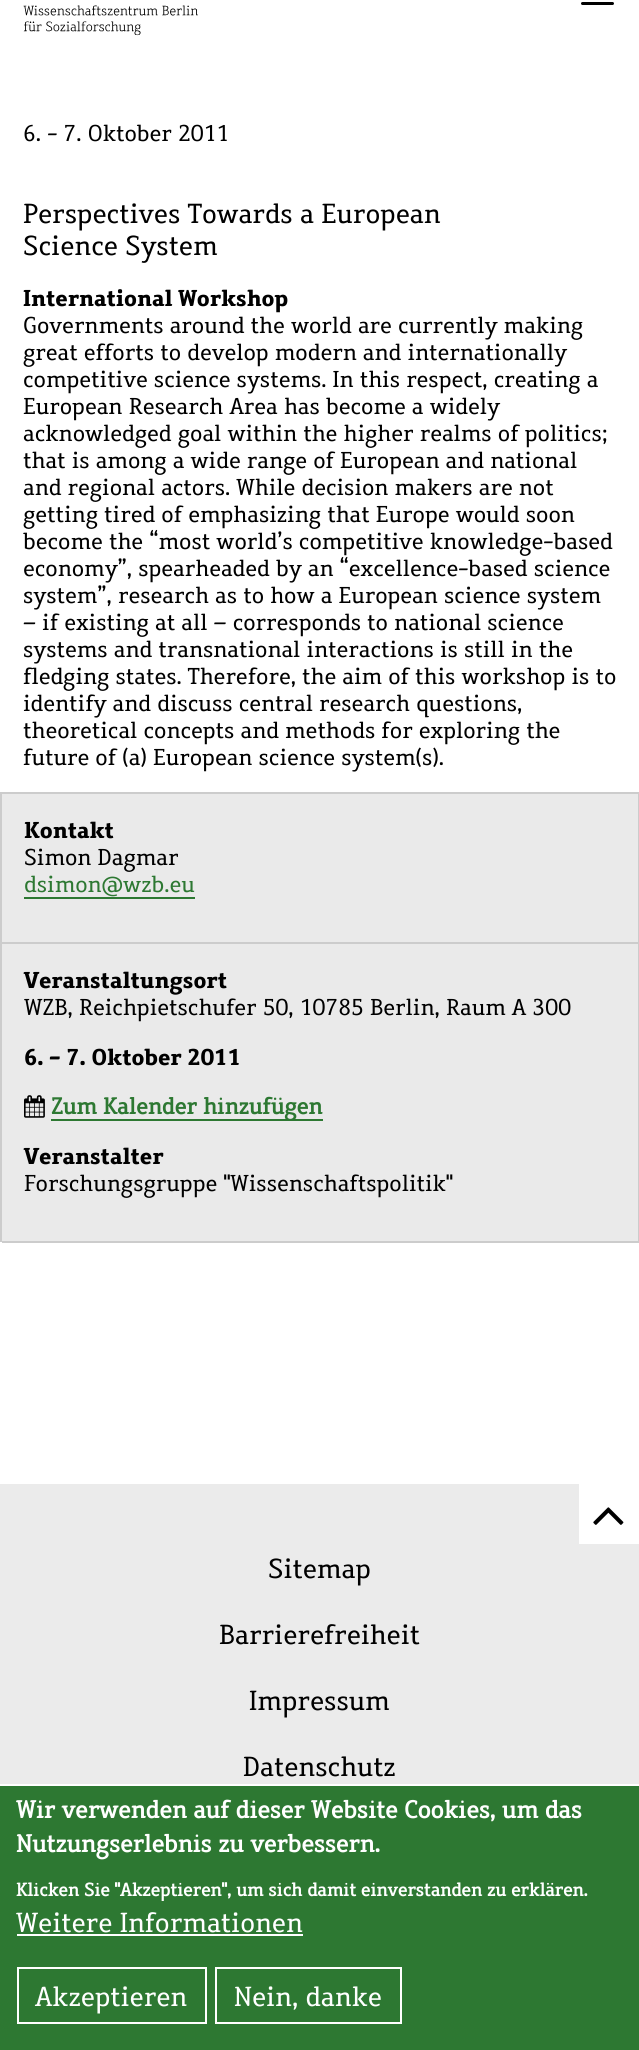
import math
import cairo

surface = cairo.ImageSurface(cairo.FORMAT_RGB24, 639, 2050)
c = cairo.Context(surface)
options = cairo.FontOptions()
options.set_hint_metrics(cairo.HINT_METRICS_OFF)
options.set_hint_style(cairo.HINT_STYLE_NONE)
c.set_font_options(options)
c.set_miter_limit(4)
def C(code):
 c.set_source_rgb(*(v / 255 for v in bytes.fromhex(code[-6:])))
def F(family, size, italic, bold):
 c.select_font_face(family, cairo.FONT_SLANT_ITALIC if italic else cairo.FONT_SLANT_NORMAL, cairo.FONT_WEIGHT_BOLD if bold else cairo.FONT_WEIGHT_NORMAL)
 c.set_font_size(size)
def T(x, y, s):
 c.move_to(x, y)
 c.show_text(s)
def R(x, y, w, h):
 c.rectangle(x, y, w, h)
 c.fill()
def Q(x, y, w, h, r):
 c.new_sub_path()
 for i, (u, v) in enumerate([(x + w - r, y + h - r), (x + r, y + h - r), (x + r, y + r), (x + w - r, y + r)]):
  c.arc(u, v, r, i * math.pi / 2, (i + 1) * math.pi / 2)
 c.close_path()
def I(path, x, y, w, h):
 c.save()
 c.set_source_surface(cairo.ImageSurface.create_from_png(path), x, y)
 c.rectangle(x, y, w, h)
 c.fill()
 c.restore()
C('ebebeb')
c.paint()
C('ffffff')
R(0,0,639,1484)
C('000000')
Q(581,2,33,3,1.5)
c.fill()
I('1.png',23,5,175,31)
F('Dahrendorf',22.5,0,0)
T(23,141,'6. - 7. Oktober 2011')
F('Dahrendorf',27,0,0)
T(23,223,'Perspectives Towards a European')
T(23,255,'Science System')
F('Dahrendorf',22.5,0,1)
T(23,306,'International Workshop')
F('Dahrendorf',22.5,0,0)
T(23,333,'Governments around the world are currently making')
T(23,360,'great efforts to develop modern and internationally')
T(23,387,'competitive science systems. In this respect, creating a')
T(23,414,'European Research Area has become a widely')
T(23,441,'acknowledged goal within the higher realms of politics;')
T(23,468,'that is among a wide range of European and national')
T(23,495,'and regional actors. While decision makers are not')
T(23,522,'getting tired of emphasizing that Europe would soon')
T(23,549,'become the “most world’s competitive knowledge-based')
T(23,576,'economy”, spearheaded by an “excellence-based science')
T(23,603,'system”, research as to how a European science system')
T(23,630,'– if existing at all – corresponds to national science')
T(23,657,'systems and transnational interactions is still in the')
T(23,684,'fledging states. Therefore, the aim of this workshop is to')
T(23,711,'identify and discuss central research questions,')
T(23,738,'theoretical concepts and methods for exploring the')
T(23,765,'future of (a) European science system(s).')
C('cccccc')
R(0,792,2,450)
R(2,792,637,2)
C('eaeaea')
R(2,794,636,148)
C('cccccc')
R(638,794,1,448)
R(2,942,637,2)
F('Dahrendorf',22.5,0,1)
C('000000')
T(24,838,'Kontakt')
F('Dahrendorf',22.5,0,0)
T(24,865,'Simon Dagmar')
C('2d7832')
T(24,892,'dsimon@wzb.eu')
R(24,897,171,2)
C('eaeaea')
R(2,944,636,297)
C('cccccc')
R(2,1241,637,2)
F('Dahrendorf',22.5,0,1)
C('000000')
T(24,988,'Veranstaltungsort')
F('Dahrendorf',22.5,0,0)
T(24,1015,'WZB, Reichpietschufer 50, 10785 Berlin, Raum A 300')
F('Dahrendorf',22.5,0,1)
T(24,1065,'6. - 7. Oktober 2011')
I('2.png',24,1095,21,23)
C('2d7832')
R(51,1119,272,2)
F('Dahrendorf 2',22.5,0,1)
T(51,1114,'Zum Kalender hinzufügen')
F('Dahrendorf',22.5,0,1)
C('000000')
T(24,1164,'Veranstalter')
F('Dahrendorf',22.5,0,0)
T(24,1191,'Forschungsgruppe "Wissenschaftspolitik"')
C('ffffff')
R(579,1484,60,60)
I('3.png',593,1507,31,18)
F('Dahrendorf',27,0,0)
C('000000')
T(268,1578,'Sitemap')
T(219,1644,'Barrierefreiheit')
T(249,1710,'Impressum')
T(243,1776,'Datenschutz')
C('2d7832')
R(0,1786,639,264)
C('ffffff')
R(0,1784,639,2)
F('Dahrendorf 2',24,0,1)
T(16,1818,'Wir verwenden auf dieser Website Cookies, um das')
T(16,1852,'Nutzungserlebnis zu verbessern.')
F('Dahrendorf 2',18,0,1)
T(16,1896,'Klicken Sie "Akzeptieren", um sich damit einverstanden zu erklären.')
F('Dahrendorf',27,0,0)
T(16,1932,'Weitere Informationen')
R(17,1934,286,2)
c.rectangle(18,1968,188,55)
c.stroke()
T(35,2006,'Akzeptieren')
c.rectangle(216,1968,185,55)
c.stroke()
T(234,2006,'Nein, danke')
surface.write_to_png('o.png')
